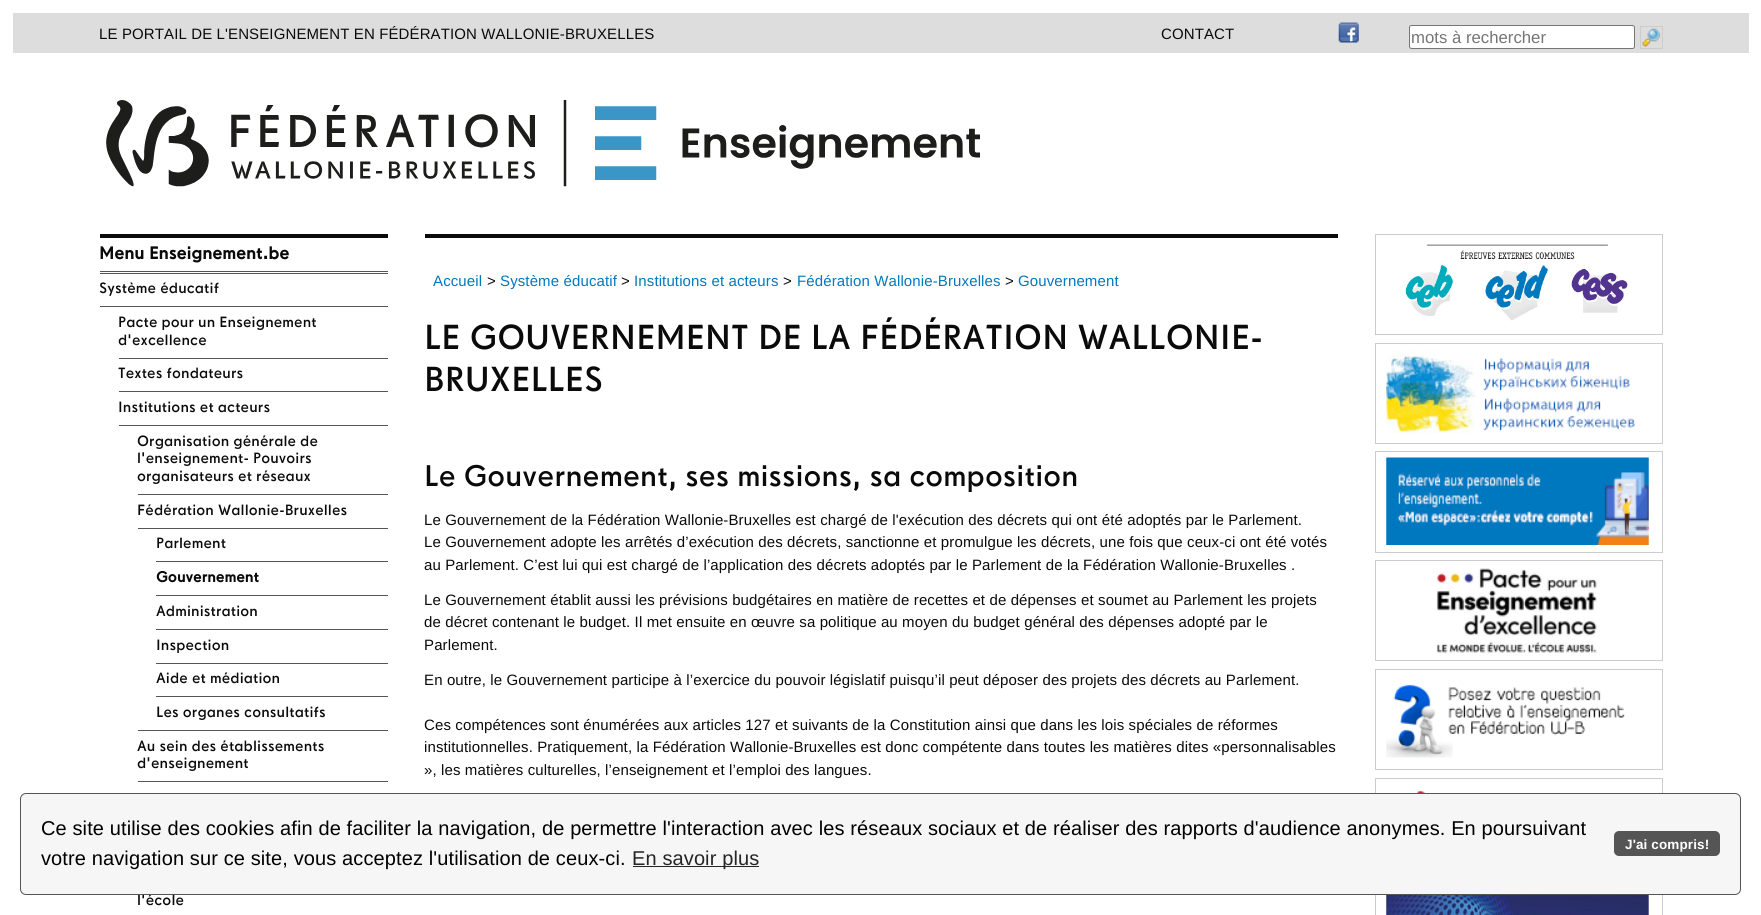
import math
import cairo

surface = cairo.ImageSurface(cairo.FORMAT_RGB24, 1761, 915)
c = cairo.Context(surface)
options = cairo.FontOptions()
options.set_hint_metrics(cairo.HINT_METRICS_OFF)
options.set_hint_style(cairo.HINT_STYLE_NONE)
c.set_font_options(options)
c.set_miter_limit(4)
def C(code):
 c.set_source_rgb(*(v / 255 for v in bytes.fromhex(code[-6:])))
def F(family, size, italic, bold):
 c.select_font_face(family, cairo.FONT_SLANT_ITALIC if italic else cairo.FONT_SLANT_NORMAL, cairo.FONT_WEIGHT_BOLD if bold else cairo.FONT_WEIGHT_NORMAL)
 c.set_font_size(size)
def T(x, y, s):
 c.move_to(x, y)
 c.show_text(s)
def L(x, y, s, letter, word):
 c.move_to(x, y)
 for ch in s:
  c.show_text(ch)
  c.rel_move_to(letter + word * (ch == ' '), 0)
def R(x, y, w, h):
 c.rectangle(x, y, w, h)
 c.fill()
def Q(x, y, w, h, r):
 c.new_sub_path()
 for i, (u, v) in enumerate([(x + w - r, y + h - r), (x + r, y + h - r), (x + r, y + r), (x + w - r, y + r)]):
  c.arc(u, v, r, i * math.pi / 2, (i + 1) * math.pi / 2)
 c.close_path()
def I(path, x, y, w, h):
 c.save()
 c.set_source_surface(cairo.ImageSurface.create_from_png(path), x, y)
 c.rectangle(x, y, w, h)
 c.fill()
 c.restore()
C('ffffff')
c.paint()
C('dddddd')
R(13,13,1736,40)
F('Liberation Sans',15,0,0)
C('0a0a0a')
L(99,39,'LE PORTAIL DE L\'ENSEIGNEMENT EN FÉDÉRATION WALLONIE-BRUXELLES',.12,0)
L(1161,39,'CONTACT',.12,0)
I('1.png',1338,22,21,21)
c.rectangle(1640.5,26.5,22,22)
C('cccccc')
c.set_line_width(1)
c.stroke()
C('ffffff')
Q(1409.5,25.5,225,23,2)
c.fill_preserve()
C('767676')
c.stroke()
F('Liberation Sans',16.75,0,0)
C('757575')
T(1411,43,'mots à rechercher')
I('2.png',1642,28,19,19)
I('3.png',106,100,874,87)
C('0a0a0a')
R(100,234,288,4)
C('555555')
R(100,271,288,1)
F('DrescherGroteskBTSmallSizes',17.5,0,1)
C('0a0a0a')
L(99,259,'Menu Enseignement.be',.12,0)
C('555555')
R(100,273,288,1)
F('DrescherGroteskBTSmallSizes',15,0,0)
C('0a0a0a')
L(99,293,'Système éducatif',.12,0)
C('555555')
R(100,306,288,1)
C('0a0a0a')
L(118,327,'Pacte pour un Enseignement',.12,0)
L(118,345,'d\'excellence',.12,0)
C('555555')
R(119,358,269,1)
C('0a0a0a')
L(118,378,'Textes fondateurs',.12,0)
C('555555')
R(119,391,269,1)
C('0a0a0a')
L(118,412,'Institutions et acteurs',.12,0)
C('555555')
R(119,425,269,1)
C('0a0a0a')
L(137,446,'Organisation générale de',.12,0)
L(137,463,'l\'enseignement- Pouvoirs',.12,0)
L(137,481,'organisateurs et réseaux',.12,0)
C('555555')
R(138,494,250,1)
C('0a0a0a')
L(137,515,'Fédération Wallonie-Bruxelles',.12,0)
C('555555')
R(138,528,250,1)
C('0a0a0a')
L(156,548,'Parlement',.12,0)
C('fafafa')
R(156,562,232,1)
C('555555')
R(156,561,232,1)
F('DrescherGroteskBTSmallSizes',15,0,1)
C('0a0a0a')
L(156,582,'Gouvernement',.12,0)
C('555555')
R(156,595,232,1)
F('DrescherGroteskBTSmallSizes',15,0,0)
C('0a0a0a')
L(156,616,'Administration',.12,0)
C('555555')
R(156,629,232,1)
C('0a0a0a')
L(156,650,'Inspection',.12,0)
C('555555')
R(156,663,232,1)
C('0a0a0a')
L(156,683,'Aide et médiation',.12,0)
C('555555')
R(156,696,232,1)
C('0a0a0a')
L(156,717,'Les organes consultatifs',.12,0)
C('555555')
R(138,730,250,1)
C('0a0a0a')
L(137,751,'Au sein des établissements',.12,0)
L(137,768,'d\'enseignement',.12,0)
C('555555')
R(138,781,250,1)
C('0a0a0a')
L(137,905,'l\'école',.12,0)
R(425,234,913,4)
F('Liberation Sans',15,0,0)
C('0079bc')
L(433,286,'Accueil',.12,0)
C('0a0a0a')
L(487,286,'>',.12,0)
C('0079bc')
L(500,286,'Système éducatif',.12,0)
C('0a0a0a')
L(621,286,'>',.12,0)
C('0079bc')
L(634,286,'Institutions et acteurs',.12,0)
C('0a0a0a')
L(783,286,'>',.12,0)
C('0079bc')
L(797,286,'Fédération Wallonie-Bruxelles',.12,0)
C('0a0a0a')
L(1005,286,'>',.12,0)
C('0079bc')
L(1018,286,'Gouvernement',.12,0)
F('DrescherGroteskBTSmallSizes',35,0,0)
C('0a0a0a')
L(424,349,'LE GOUVERNEMENT DE LA FÉDÉRATION WALLONIE-',.12,0)
L(424,391,'BRUXELLES',.12,0)
F('DrescherGroteskBTSmallSizes',30,0,0)
L(424,486,'Le Gouvernement, ses missions, sa composition',.12,0)
F('Liberation Sans',15,0,0)
L(424,525,'Le Gouvernement de la Fédération Wallonie-Bruxelles est chargé de l\'exécution des décrets qui ont été adoptés par le Parlement.',.12,0)
L(424,547,'Le Gouvernement adopte les arrêtés d’exécution des décrets, sanctionne et promulgue les décrets, une fois que ceux-ci ont été votés',.12,0)
L(424,570,'au Parlement. C’est lui qui est chargé de l’application des décrets adoptés par le Parlement de la Fédération Wallonie-Bruxelles .',.12,0)
L(424,605,'Le Gouvernement établit aussi les prévisions budgétaires en matière de recettes et de dépenses et soumet au Parlement les projets',.12,0)
L(424,627,'de décret contenant le budget. Il met ensuite en œuvre sa politique au moyen du budget général des dépenses adopté par le',.12,0)
L(424,650,'Parlement.',.12,0)
L(424,685,'En outre, le Gouvernement participe à l’exercice du pouvoir législatif puisqu’il peut déposer des projets des décrets au Parlement.',.12,0)
L(424,730,'Ces compétences sont énumérées aux articles 127 et suivants de la Constitution ainsi que dans les lois spéciales de réformes',.12,0)
L(424,752,'institutionnelles. Pratiquement, la Fédération Wallonie-Bruxelles est donc compétente dans toutes les matières dites «personnalisables',.12,0)
L(424,775,'», les matières culturelles, l’enseignement et l’emploi des langues.',.12,0)
c.rectangle(1375.5,234.5,287,100)
C('cccccc')
c.stroke()
I('4.png',1405,244,223,77)
c.rectangle(1375.5,343.5,287,100)
c.stroke()
I('5.png',1386,350,250,84)
c.rectangle(1375.5,451.5,287,101)
c.stroke()
I('6.png',1386,457,263,88)
c.rectangle(1375.5,560.5,287,100)
c.stroke()
I('7.png',1436,568,161,85)
c.rectangle(1375.5,669.5,287,100)
c.stroke()
I('8.png',1386,684,239,74)
c.rectangle(1375.5,778.5,287,100)
c.stroke()
I('9.png',1391,790,231,3)
c.rectangle(1375.5,886.5,287,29)
c.stroke()
I('10.png',1386,895,263,20)
C('f6f6f6')
Q(20.5,793.5,1720,101,5.5)
c.fill_preserve()
C('555555')
c.stroke()
F('Liberation Sans',20,0,0)
C('000000')
L(41,835,'Ce site utilise des cookies afin de faciliter la navigation, de permettre l\'interaction avec les réseaux sociaux et de réaliser des rapports d\'audience anonymes. En poursuivant',.12,0)
L(41,865,'votre navigation sur ce site, vous acceptez l\'utilisation de ceux-ci.',.12,0)
C('252525')
R(633,866,126,1)
L(632,865,'En savoir plus',.12,0)
C('555555')
Q(1614,831,106,25,5)
c.fill()
F('Liberation Sans',13.5,0,1)
C('ffffff')
L(1625,849,'J\'ai compris!',.12,0)
surface.write_to_png('o.png')
